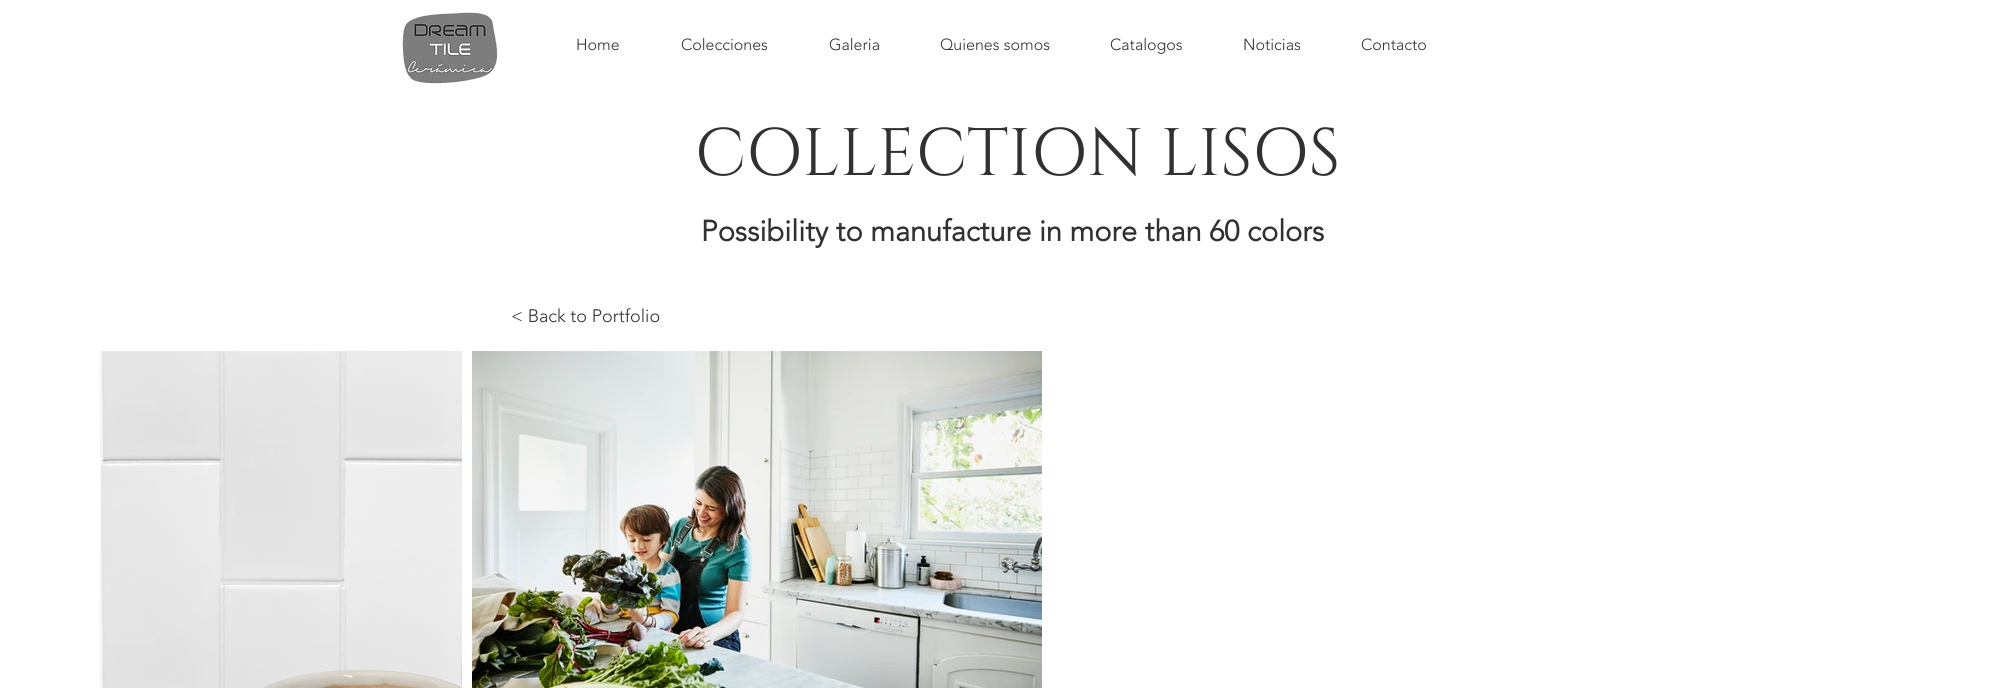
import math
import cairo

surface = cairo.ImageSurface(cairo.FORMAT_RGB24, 2002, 688)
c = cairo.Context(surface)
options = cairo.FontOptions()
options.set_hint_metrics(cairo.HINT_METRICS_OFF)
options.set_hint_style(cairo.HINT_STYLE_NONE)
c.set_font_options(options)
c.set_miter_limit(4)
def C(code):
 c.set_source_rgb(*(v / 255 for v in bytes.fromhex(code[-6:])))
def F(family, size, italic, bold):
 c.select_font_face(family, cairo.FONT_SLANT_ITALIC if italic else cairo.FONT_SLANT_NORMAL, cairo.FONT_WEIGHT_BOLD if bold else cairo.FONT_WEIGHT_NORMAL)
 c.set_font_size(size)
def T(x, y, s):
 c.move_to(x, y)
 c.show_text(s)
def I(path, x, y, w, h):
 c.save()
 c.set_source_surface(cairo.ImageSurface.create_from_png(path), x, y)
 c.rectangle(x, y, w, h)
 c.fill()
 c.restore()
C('ffffff')
c.paint()
I('1.png',402,12,96,72)
F('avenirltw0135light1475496 Light',16,0,0)
C('303131')
T(576,50,'Home')
T(681,50,'Colecciones')
T(829,50,'Galeria')
T(940,50,'Quienes somos')
T(1110,50,'Catalogos')
T(1243,50,'Noticias')
T(1361,50,'Contacto')
F('Cinzel',67,0,0)
T(695,175,'COLLECTION LISOS')
F('avenirltw0135light1475496',29,0,1)
T(701,241,'Possibility to manufacture in more than 60 colors')
F('avenirltw0135light1475496 Light',18,0,0)
T(511,322,'< Back to Portfolio')
I('2.png',100,351,362,337)
I('3.png',472,351,570,337)
surface.write_to_png('o.png')
